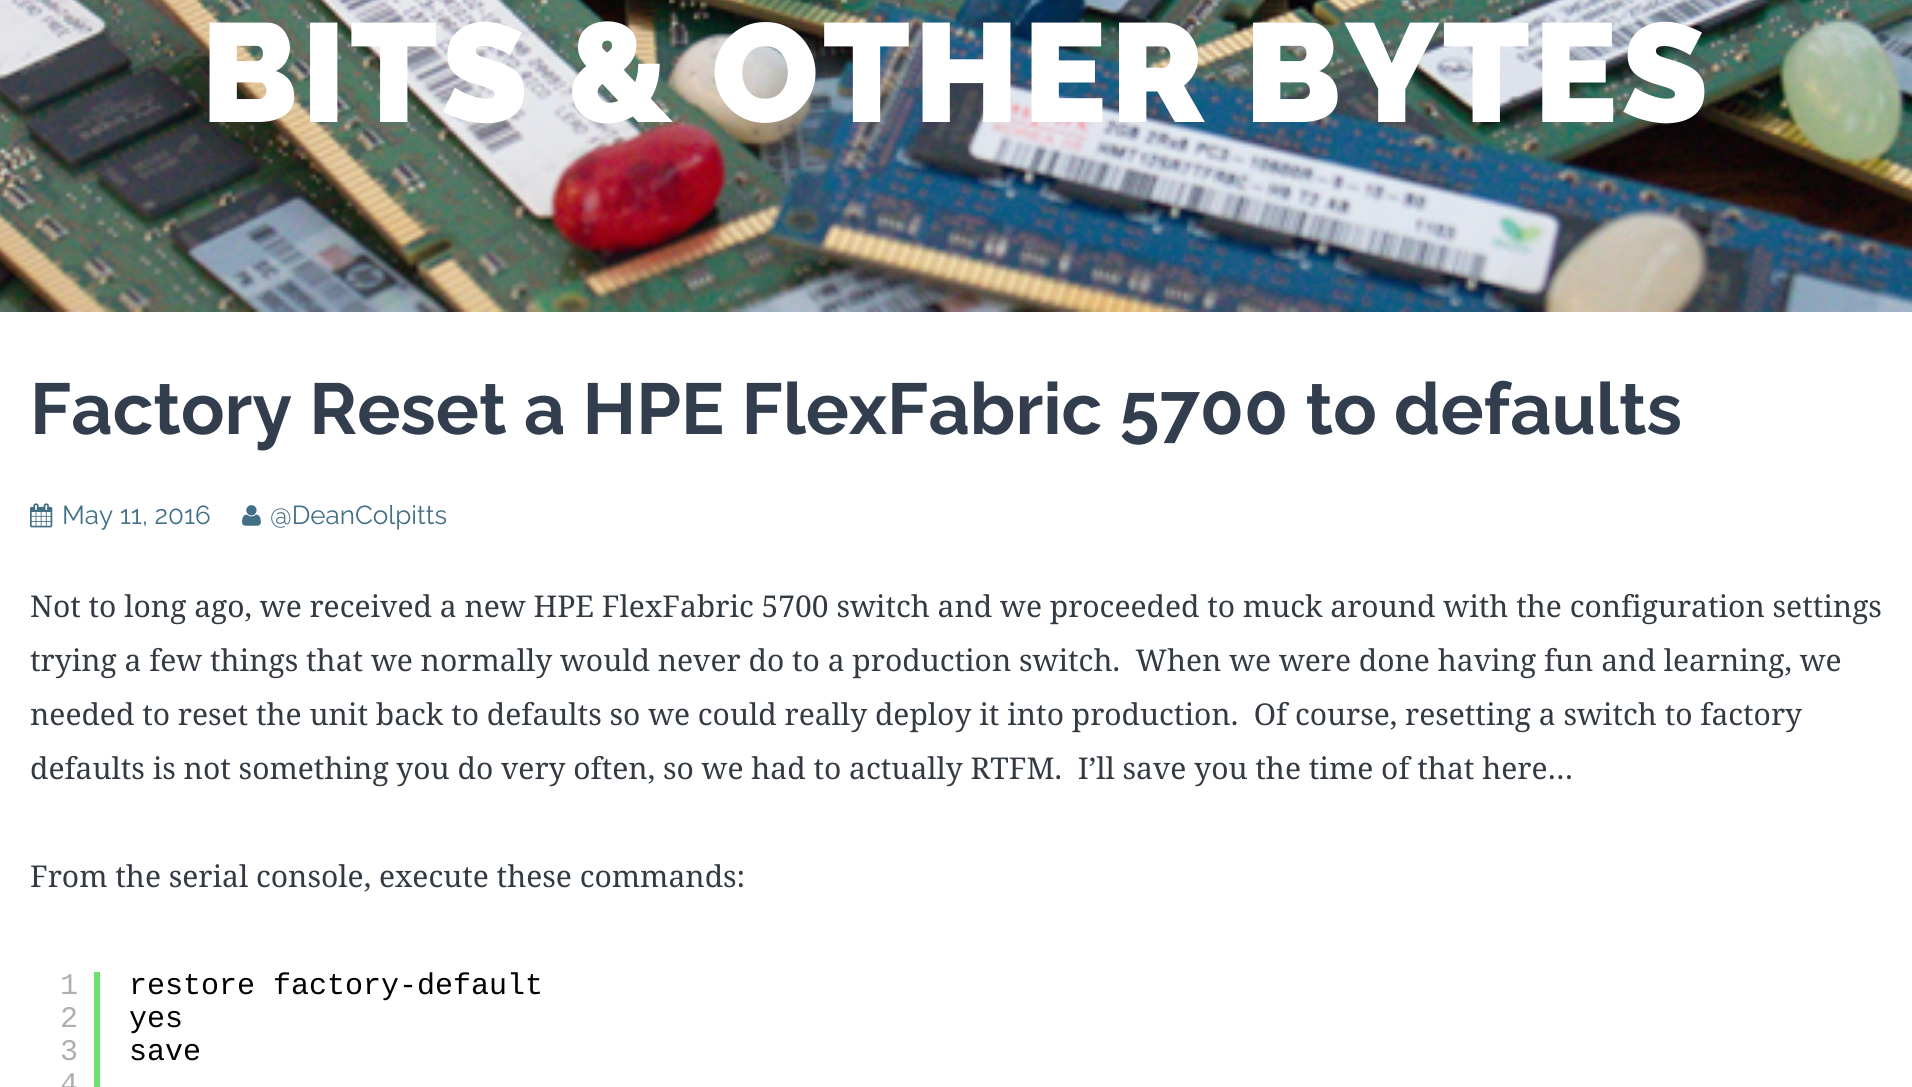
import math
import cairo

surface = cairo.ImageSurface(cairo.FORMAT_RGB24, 1912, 1087)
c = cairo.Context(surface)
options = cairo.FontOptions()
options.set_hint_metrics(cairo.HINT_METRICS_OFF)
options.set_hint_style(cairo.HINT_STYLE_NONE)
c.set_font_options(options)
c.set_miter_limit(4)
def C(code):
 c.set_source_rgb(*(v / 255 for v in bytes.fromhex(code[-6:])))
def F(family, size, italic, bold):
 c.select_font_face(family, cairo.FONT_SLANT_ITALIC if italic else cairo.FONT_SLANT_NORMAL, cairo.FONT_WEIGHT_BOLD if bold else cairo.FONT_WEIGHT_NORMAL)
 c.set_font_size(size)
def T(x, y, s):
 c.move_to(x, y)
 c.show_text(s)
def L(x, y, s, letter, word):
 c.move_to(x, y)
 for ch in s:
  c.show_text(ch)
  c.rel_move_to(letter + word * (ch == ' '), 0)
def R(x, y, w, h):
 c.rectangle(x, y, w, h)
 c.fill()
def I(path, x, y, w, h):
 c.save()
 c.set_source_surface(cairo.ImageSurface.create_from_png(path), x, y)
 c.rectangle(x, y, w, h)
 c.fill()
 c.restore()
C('ffffff')
c.paint()
I('1.png',0,0,1912,312)
F('Raleway Black',140,0,0)
C('ffffff')
L(201,122,'BITS & OTHER BYTES',4,0)
F('Raleway',72,0,1)
C('323e4e')
T(30,434,'Factory Reset a HPE FlexFabric 5700 to defaults')
I('2.png',30,503,23,25)
F('Raleway',26,0,0)
C('426f86')
T(62,524,'May 11, 2016')
I('3.png',242,505,19,21)
T(270,524,'@DeanColpitts')
F('Noto Serif',30,0,0)
C('333a42')
T(30,617,'Not to long ago, we received a new HPE FlexFabric 5700 switch and we proceeded to muck around with the configuration settings')
T(30,671,'trying a few things that we normally would never do to a production switch.  When we were done having fun and learning, we')
T(30,725,'needed to reset the unit back to defaults so we could really deploy it into production.  Of course, resetting a switch to factory')
T(30,779,'defaults is not something you do very often, so we had to actually RTFM.  I’ll save you the time of that here…')
T(30,887,'From the serial console, execute these commands:')
C('6ce26c')
R(94,972,6,115)
F('Liberation Mono',30,0,0)
C('afafaf')
T(60,994,'1')
T(60,1027,'2')
T(60,1060,'3')
T(60,1093,'4')
C('000000')
T(129,994,'restore factory-default')
T(129,1027,'yes')
T(129,1060,'save')
surface.write_to_png('o.png')
